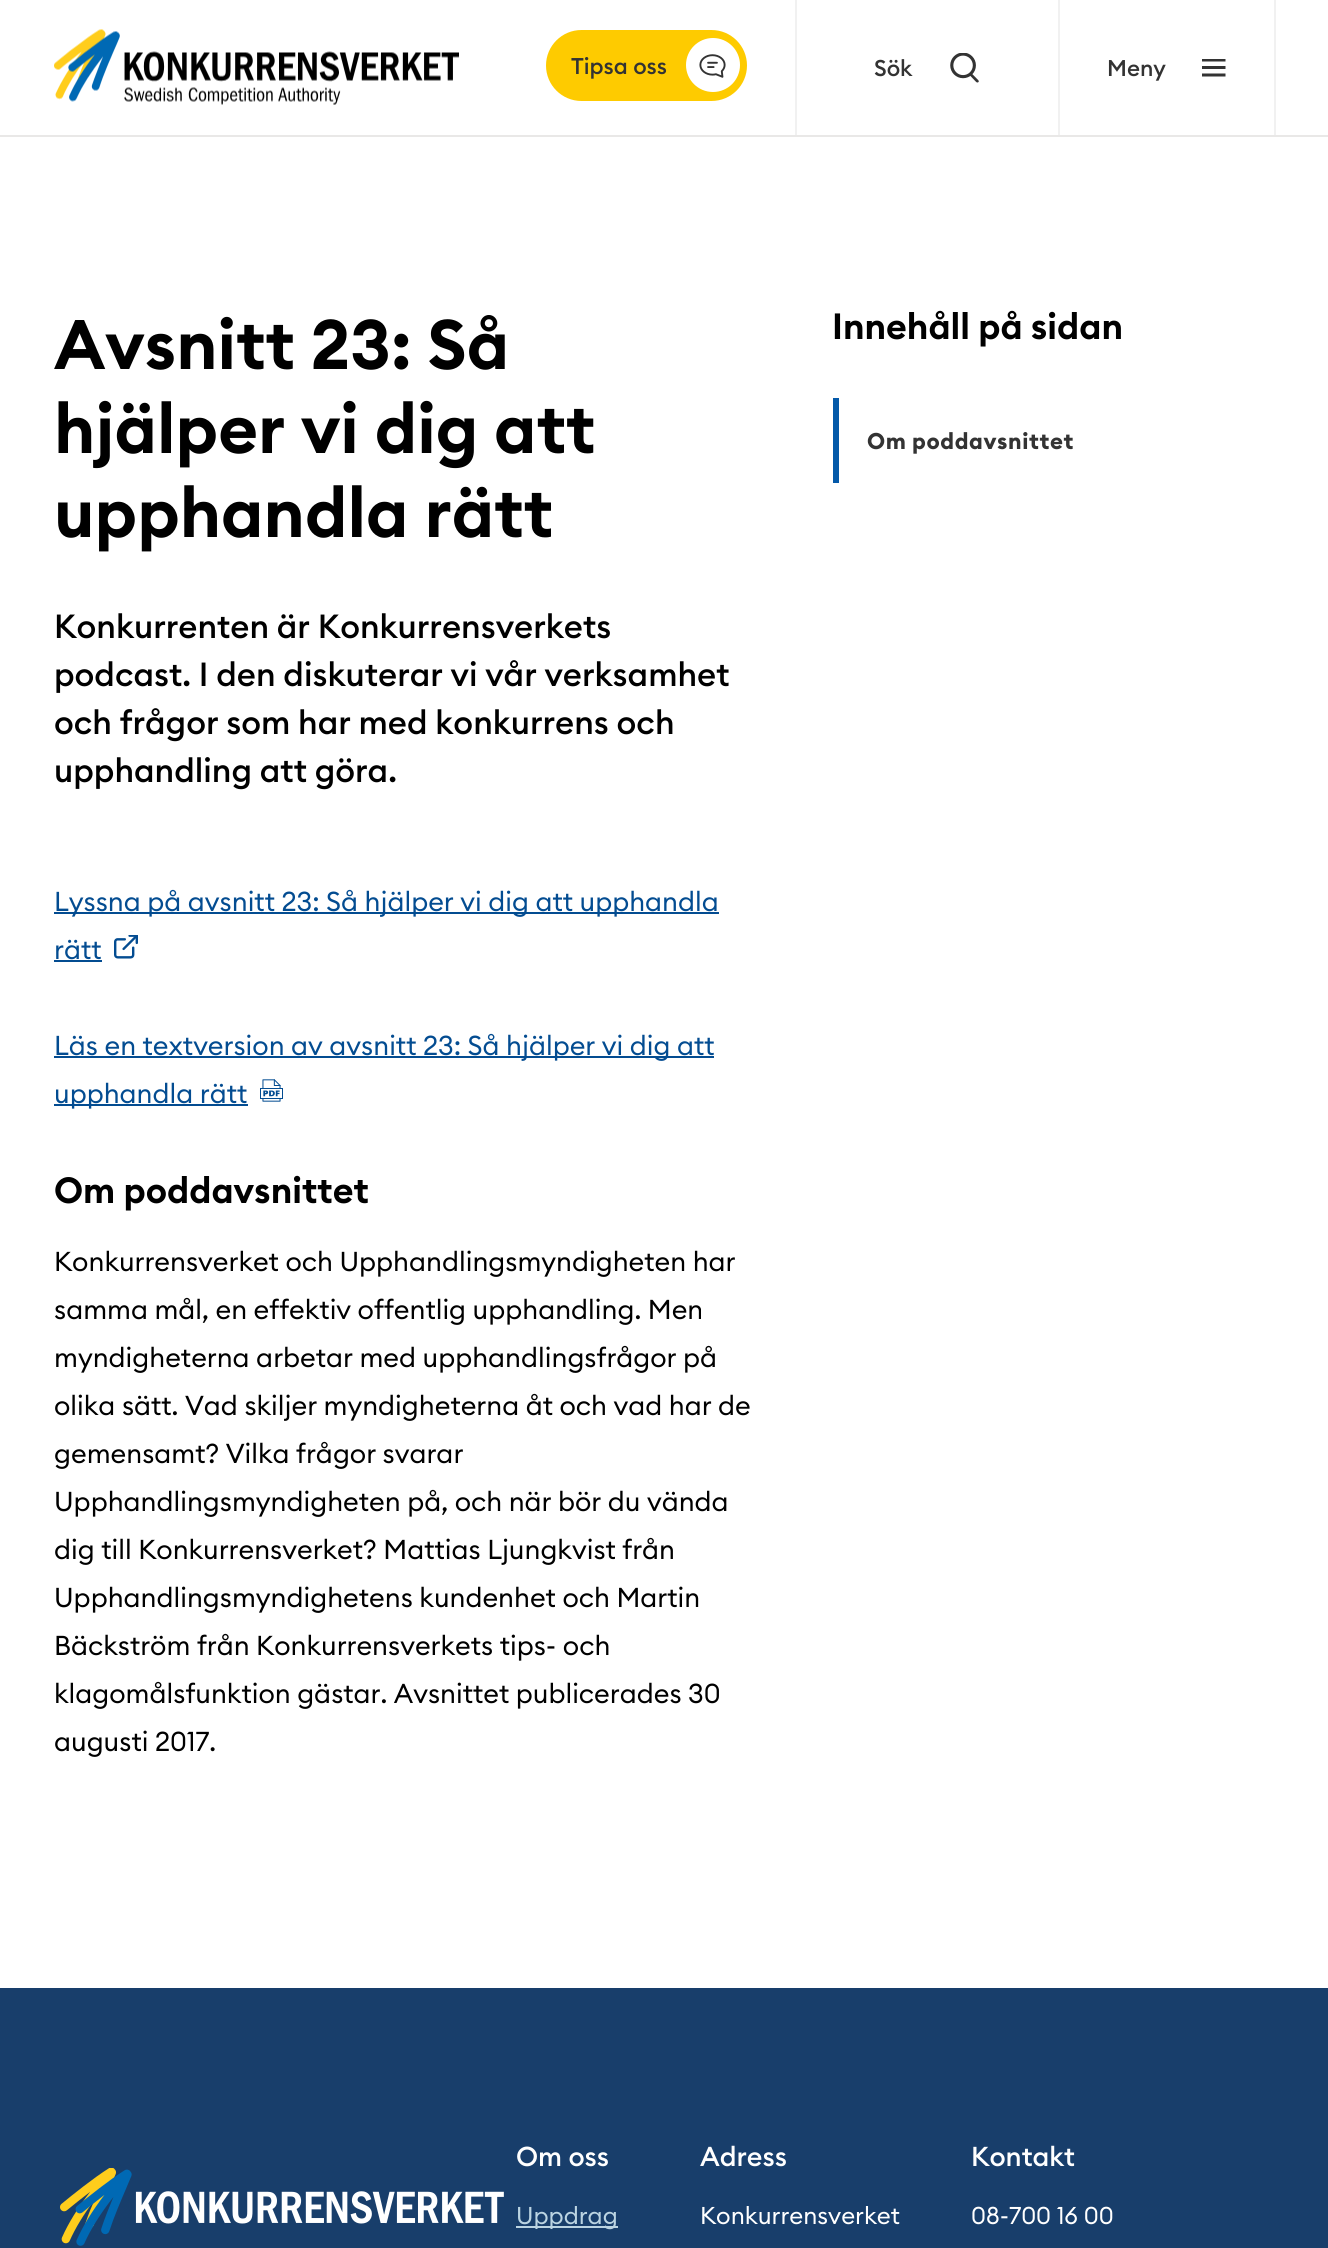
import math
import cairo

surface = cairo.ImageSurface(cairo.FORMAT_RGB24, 1328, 2248)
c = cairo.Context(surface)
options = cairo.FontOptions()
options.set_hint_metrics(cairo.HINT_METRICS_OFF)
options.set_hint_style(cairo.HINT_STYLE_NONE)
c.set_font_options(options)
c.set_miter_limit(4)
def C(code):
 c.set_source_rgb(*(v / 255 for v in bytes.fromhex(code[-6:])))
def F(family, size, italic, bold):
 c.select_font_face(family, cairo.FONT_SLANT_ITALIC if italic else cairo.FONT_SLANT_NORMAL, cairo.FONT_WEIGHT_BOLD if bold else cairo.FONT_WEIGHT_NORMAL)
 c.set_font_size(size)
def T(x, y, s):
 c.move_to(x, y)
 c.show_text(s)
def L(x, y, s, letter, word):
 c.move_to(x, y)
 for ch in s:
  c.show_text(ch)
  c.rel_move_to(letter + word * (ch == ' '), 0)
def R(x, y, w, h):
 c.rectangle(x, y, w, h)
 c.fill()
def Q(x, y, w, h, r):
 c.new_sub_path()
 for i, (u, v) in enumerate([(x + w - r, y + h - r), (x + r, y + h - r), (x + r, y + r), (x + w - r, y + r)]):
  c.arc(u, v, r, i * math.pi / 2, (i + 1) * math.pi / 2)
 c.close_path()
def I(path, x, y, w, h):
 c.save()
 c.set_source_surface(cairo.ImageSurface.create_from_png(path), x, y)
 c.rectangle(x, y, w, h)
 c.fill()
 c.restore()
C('ffffff')
c.paint()
C('e9e8e7')
R(0,135,1328,2)
I('1.png',54,29,405,76)
C('fecb00')
Q(546,30,201,71,35.5)
c.fill()
F('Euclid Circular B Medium',22.5,0,0)
C('333333')
T(571,74,'Tipsa oss')
C('ffffff')
c.new_path()
c.arc(713,65,27,0,2 * math.pi)
c.fill()
I('2.png',699,54,27,24)
C('f1f1f1')
R(795,0,2,135)
C('333333')
T(874,76,'Sök')
I('3.png',950,53,29,30)
C('f1f1f1')
R(1274,0,2,135)
R(1058,0,2,135)
C('333333')
T(1107,76,'Meny')
I('4.png',1202,59,24,18)
F('Euclid Circular B SemiBold',69,0,0)
C('000000')
T(54,369,'Avsnitt 23: Så')
T(54,453,'hjälper vi dig att')
T(54,537,'upphandla rätt')
F('Euclid Circular B Medium',33,0,0)
T(54,638,'Konkurrenten är Konkurrensverkets')
T(54,686,'podcast. I den diskuterar vi vår verksamhet')
T(54,734,'och frågor som har med konkurrens och')
T(54,782,'upphandling att göra.')
C('034c91')
R(54,912,665,2)
F('Euclid Circular B',27,0,0)
T(54,911,'Lyssna på avsnitt 23: Så hjälper vi dig att upphandla')
T(54,959,'rätt')
R(54,960,48,2)
I('5.png',114,935,24,24)
R(54,1056,660,2)
T(54,1055,'Läs en textversion av avsnitt 23: Så hjälper vi dig att')
R(54,1104,194,2)
T(54,1103,'upphandla rätt')
I('6.png',260,1079,23,23)
F('Euclid Circular B SemiBold',36,0,0)
C('000000')
T(54,1203,'Om poddavsnittet')
F('Euclid Circular B',27,0,0)
T(54,1271,'Konkurrensverket och Upphandlingsmyndigheten har')
T(54,1319,'samma mål, en effektiv offentlig upphandling. Men')
T(54,1367,'myndigheterna arbetar med upphandlingsfrågor på')
T(54,1415,'olika sätt. Vad skiljer myndigheterna åt och vad har de')
T(54,1463,'gemensamt? Vilka frågor svarar')
T(54,1511,'Upphandlingsmyndigheten på, och när bör du vända')
T(54,1559,'dig till Konkurrensverket? Mattias Ljungkvist från')
T(54,1607,'Upphandlingsmyndighetens kundenhet och Martin')
T(54,1655,'Bäckström från Konkurrensverkets tips- och')
T(54,1703,'klagomålsfunktion gästar. Avsnittet publicerades 30')
T(54,1751,'augusti 2017.')
F('Euclid Circular B SemiBold',36,0,0)
T(832,339,'Innehåll på sidan')
C('0459a9')
R(833,398,6,85)
F('Euclid Circular B',22.5,0,1)
C('333333')
L(867,449,'Om poddavsnittet',.6,0)
C('183e6b')
R(0,1988,1328,260)
I('7.png',60,2168,444,78)
F('Euclid Circular B Medium',27,0,0)
C('ffffff')
T(516,2166,'Om oss')
C('bbd4e2')
R(516,2226,102,2)
F('Euclid Circular B',24,0,0)
T(516,2224,'Uppdrag')
F('Euclid Circular B Medium',27,0,0)
C('ffffff')
T(700,2166,'Adress')
F('Euclid Circular B',24,0,0)
T(700,2224,'Konkurrensverket')
F('Euclid Circular B Medium',27,0,0)
T(971,2166,'Kontakt')
F('Euclid Circular B',24,0,0)
T(971,2224,'08-700 16 00')
surface.write_to_png('o.png')
